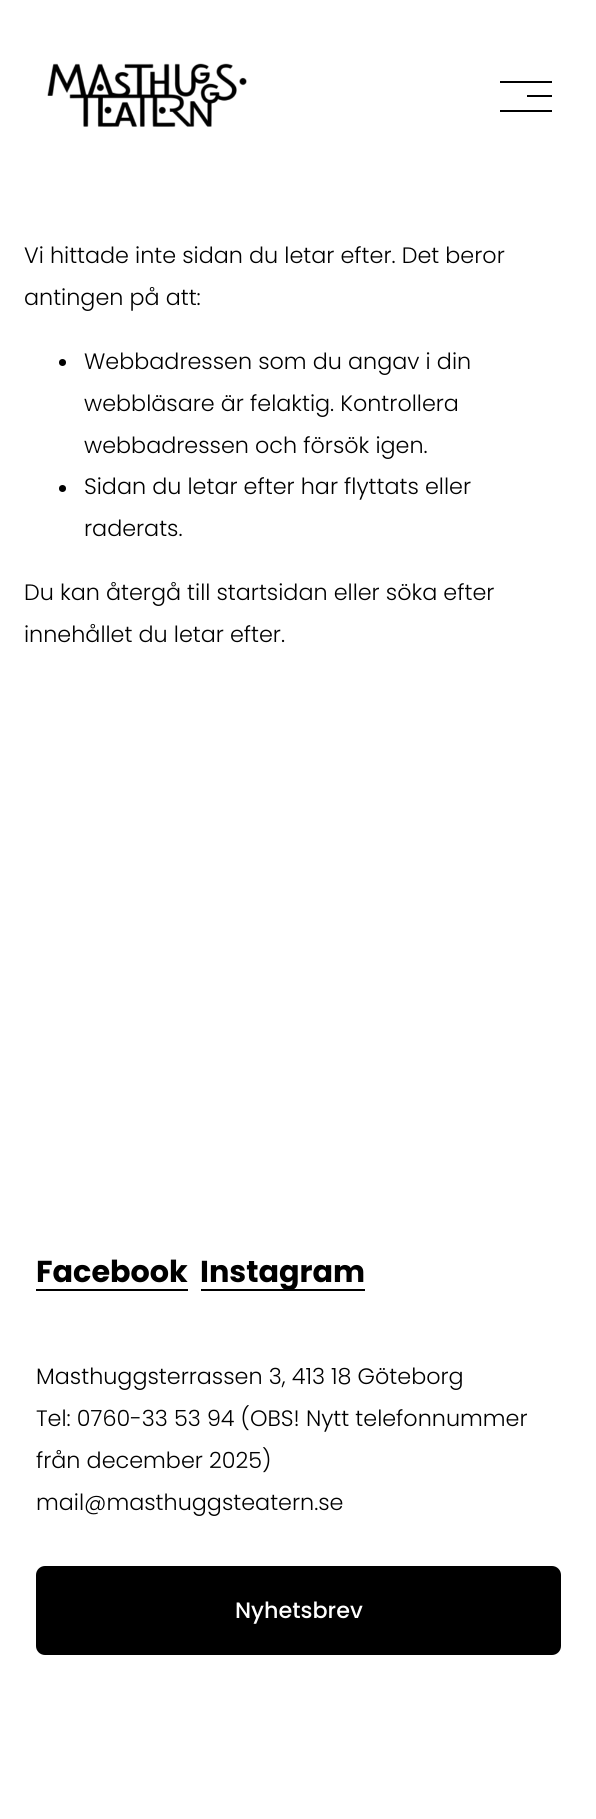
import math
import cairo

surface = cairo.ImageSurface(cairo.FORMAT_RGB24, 596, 1819)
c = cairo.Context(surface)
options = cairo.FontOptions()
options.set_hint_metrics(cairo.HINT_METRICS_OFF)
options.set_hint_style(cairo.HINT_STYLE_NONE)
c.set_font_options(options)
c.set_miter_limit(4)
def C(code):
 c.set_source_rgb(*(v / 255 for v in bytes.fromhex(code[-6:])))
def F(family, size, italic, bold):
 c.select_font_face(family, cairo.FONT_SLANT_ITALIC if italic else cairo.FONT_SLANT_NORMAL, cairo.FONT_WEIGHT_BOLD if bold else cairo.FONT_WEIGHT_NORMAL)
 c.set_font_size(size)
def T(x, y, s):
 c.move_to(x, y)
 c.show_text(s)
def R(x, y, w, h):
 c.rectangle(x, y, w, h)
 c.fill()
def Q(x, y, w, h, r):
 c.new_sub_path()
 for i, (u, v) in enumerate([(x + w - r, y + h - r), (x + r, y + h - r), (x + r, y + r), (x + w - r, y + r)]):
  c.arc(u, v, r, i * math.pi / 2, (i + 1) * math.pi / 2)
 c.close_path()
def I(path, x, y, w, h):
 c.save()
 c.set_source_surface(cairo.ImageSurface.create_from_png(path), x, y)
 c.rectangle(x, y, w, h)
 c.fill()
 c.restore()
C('ffffff')
c.paint()
I('1.png',47,63,200,64)
C('000000')
R(500,81,52,2)
R(527,95,25,2)
R(500,110,52,2)
F('Poppins Light',22.3,0,0)
T(24,263,'Vi hittade inte sidan du letar efter. Det beror')
T(24,305,'antingen på att:')
c.new_path()
c.arc(62.5,362.5,3.5,0,2 * math.pi)
c.fill()
T(84,369,'Webbadressen som du angav i din')
T(84,411,'webbläsare är felaktig. Kontrollera')
T(84,453,'webbadressen och försök igen.')
c.new_path()
c.arc(62.5,488.5,3.5,0,2 * math.pi)
c.fill()
T(84,494,'Sidan du letar efter har flyttats eller')
T(84,536,'raderats.')
T(24,600,'Du kan återgå till startsidan eller söka efter')
T(24,642,'innehållet du letar efter.')
F('Poppins',30.25,0,1)
T(36,1282,'Facebook')
R(36,1289,152,2)
R(201,1289,164,2)
T(200,1282,'Instagram')
F('Poppins Light',22.3,0,0)
T(36,1384,'Masthuggsterrassen 3, 413 18 Göteborg')
T(36,1426,'Tel: 0760-33 53 94 (OBS! Nytt telefonnummer')
T(36,1468,'från december 2025)')
T(36,1510,'mail@masthuggsteatern.se')
Q(36,1566,525,89,9)
c.fill()
F('Poppins Medium',22.3,0,0)
C('ffffff')
T(235,1618,'Nyhetsbrev')
surface.write_to_png('o.png')
